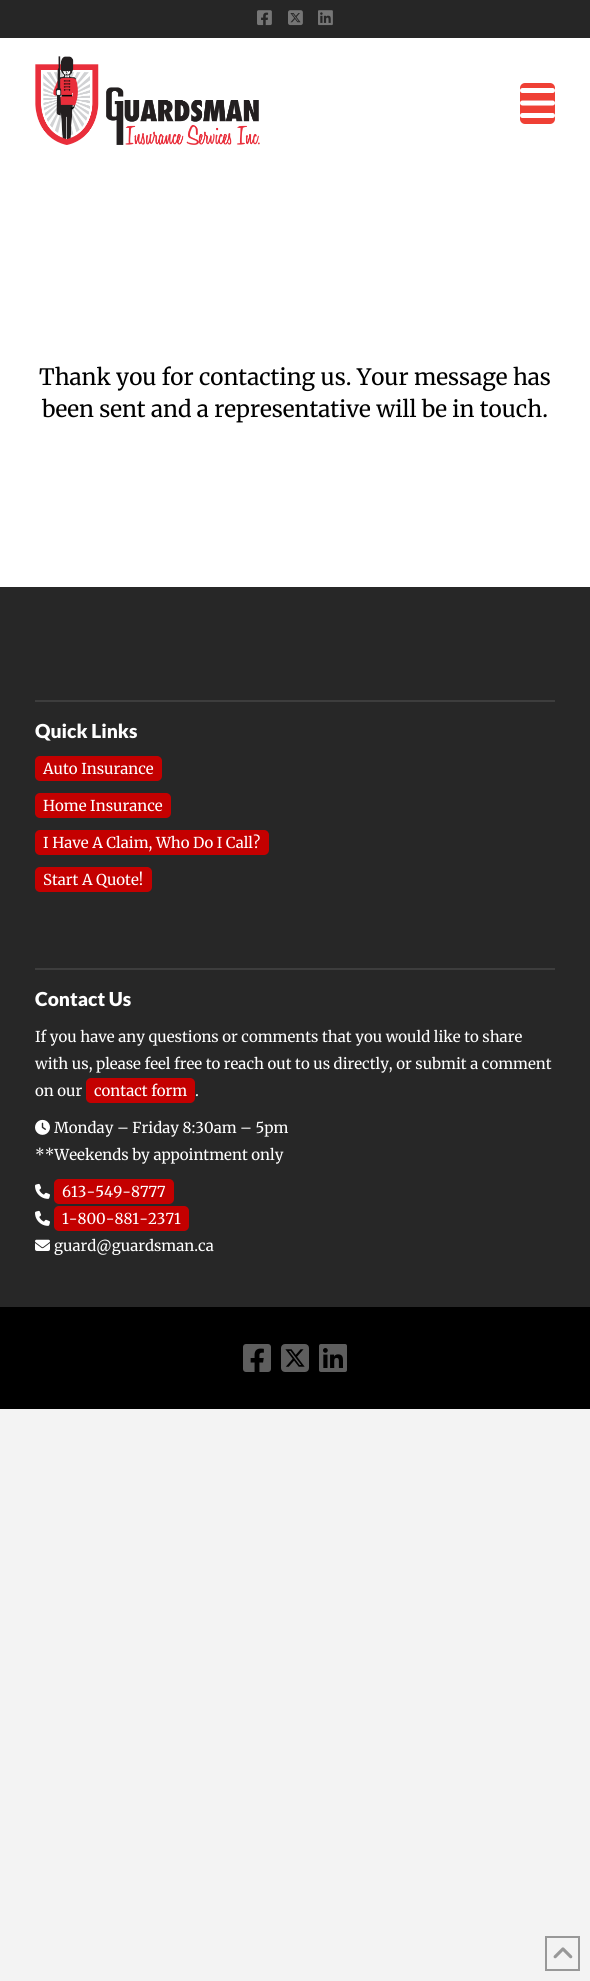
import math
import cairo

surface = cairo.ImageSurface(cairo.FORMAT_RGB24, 590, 1981)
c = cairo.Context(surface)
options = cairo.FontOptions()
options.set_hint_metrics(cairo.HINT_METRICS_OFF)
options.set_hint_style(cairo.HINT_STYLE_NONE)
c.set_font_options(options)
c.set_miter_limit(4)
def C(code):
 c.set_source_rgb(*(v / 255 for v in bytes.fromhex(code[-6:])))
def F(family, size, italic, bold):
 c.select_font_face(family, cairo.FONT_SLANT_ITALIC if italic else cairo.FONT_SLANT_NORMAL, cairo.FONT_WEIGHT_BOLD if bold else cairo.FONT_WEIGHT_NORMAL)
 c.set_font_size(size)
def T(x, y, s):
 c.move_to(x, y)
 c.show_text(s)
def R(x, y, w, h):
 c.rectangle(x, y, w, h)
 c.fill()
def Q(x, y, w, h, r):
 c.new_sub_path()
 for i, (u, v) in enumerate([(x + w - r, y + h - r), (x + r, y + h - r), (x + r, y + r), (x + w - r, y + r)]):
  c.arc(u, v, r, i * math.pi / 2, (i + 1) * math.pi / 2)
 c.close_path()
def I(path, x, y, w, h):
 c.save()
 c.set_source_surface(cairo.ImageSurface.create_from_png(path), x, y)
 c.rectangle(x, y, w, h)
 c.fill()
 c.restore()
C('f3f3f3')
c.paint()
C('262626')
R(0,0,590,38)
I('1.png',257,10,15,16)
I('2.png',288,10,15,16)
I('3.png',318,10,15,16)
C('ffffff')
R(0,38,590,549)
I('4.png',35,56,225,89)
C('ef4035')
Q(520,83,35,41,5)
c.fill()
I('5.png',520,88,35,30)
F('Merriweather',22.5,0,0)
C('000000')
T(39,385,'Thank you for contacting us. Your message has')
T(42,417,'been sent and a representative will be in touch.')
C('272727')
R(0,587,590,720)
C('3d3d3d')
R(35,700,520,2)
F('Lato Black',19.25,0,0)
C('ffffff')
T(35,738,'Quick Links')
C('c40000')
Q(35,756,127,25,5)
c.fill()
F('Merriweather',15,0,0)
C('ffffff')
T(43,774,'Auto Insurance')
C('c40000')
Q(35,793,136,25,5)
c.fill()
C('ffffff')
T(43,811,'Home Insurance')
C('c40000')
Q(35,830,234,25,5)
c.fill()
C('ffffff')
T(43,848,'I Have A Claim, Who Do I Call?')
C('c40000')
Q(35,867,117,25,5)
c.fill()
C('ffffff')
T(43,885,'Start A Quote!')
C('3d3d3d')
R(35,968,520,2)
F('Lato Black',19.25,0,0)
C('ffffff')
T(35,1006,'Contact Us')
F('Merriweather',15,0,0)
T(35,1042,'If you have any questions or comments that you would like to share')
T(35,1069,'with us, please feel free to reach out to us directly, or submit a comment')
T(35,1096,'on our')
C('c40000')
Q(86,1078,109,25,5)
c.fill()
C('ffffff')
T(94,1096,'contact form')
T(195,1096,'.')
I('6.png',35,1119,15,16)
T(54,1133,'Monday – Friday 8:30am – 5pm')
T(35,1160,'**Weekends by appointment only')
I('7.png',35,1183,15,16)
C('c40000')
Q(54,1179,120,25,5)
c.fill()
C('ffffff')
T(62,1197,'613-549-8777')
I('7.png',35,1210,15,16)
C('c40000')
Q(54,1206,135,25,5)
c.fill()
C('ffffff')
T(62,1224,'1-800-881-2371')
I('8.png',35,1239,15,12)
T(54,1251,'guard@guardsman.ca')
C('000000')
R(0,1307,590,102)
I('9.png',243,1344,28,28)
I('10.png',281,1344,28,28)
I('11.png',319,1344,28,28)
c.rectangle(546,1937,33,33)
C('989898')
c.stroke()
I('12.png',553,1947,20,12)
surface.write_to_png('o.png')
